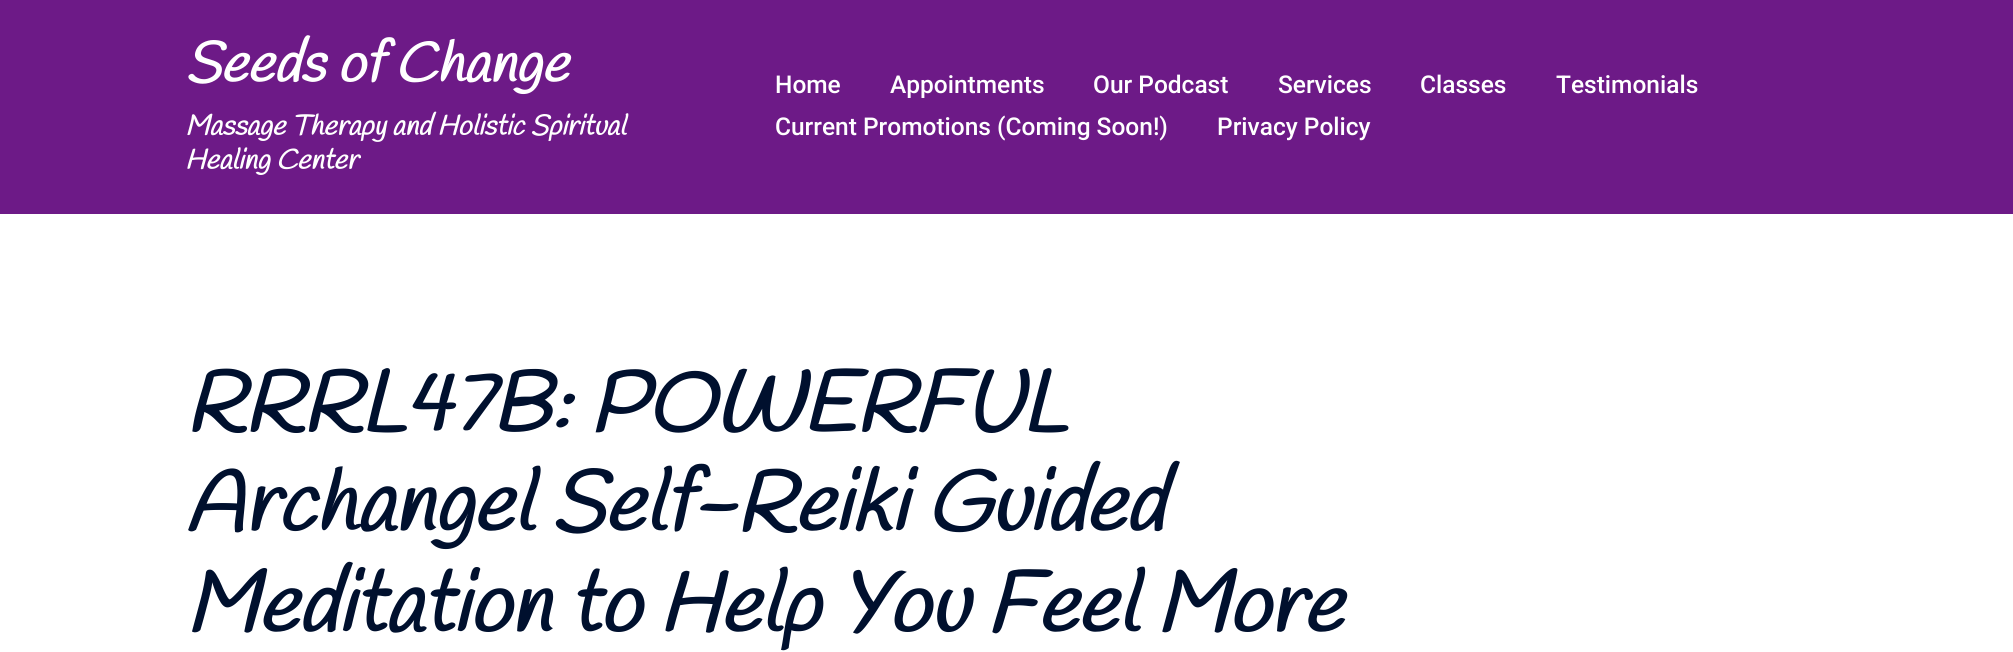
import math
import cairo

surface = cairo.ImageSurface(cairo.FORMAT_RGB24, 2013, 652)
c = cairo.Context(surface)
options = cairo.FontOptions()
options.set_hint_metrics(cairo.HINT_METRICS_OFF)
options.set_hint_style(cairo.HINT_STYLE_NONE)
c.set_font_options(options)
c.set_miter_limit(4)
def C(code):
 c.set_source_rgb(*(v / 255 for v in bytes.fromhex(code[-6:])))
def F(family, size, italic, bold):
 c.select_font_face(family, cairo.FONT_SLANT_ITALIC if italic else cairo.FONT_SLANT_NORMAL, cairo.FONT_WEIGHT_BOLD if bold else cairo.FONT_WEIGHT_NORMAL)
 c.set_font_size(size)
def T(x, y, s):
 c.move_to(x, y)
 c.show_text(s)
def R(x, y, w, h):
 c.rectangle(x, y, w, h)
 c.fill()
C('ffffff')
c.paint()
C('6d1a87')
R(0,0,2013,214)
F('Handlee',56,1,1)
C('ffffff')
T(185,82,'Seeds of Change')
F('Handlee',28,1,1)
T(185,135,'Massage Therapy and Holistic Spiritual')
T(185,169,'Healing Center')
F('Roboto Medium',24.5,0,0)
T(775,93,'Home')
T(890,93,'Appointments')
T(1093,93,'Our Podcast')
T(1278,93,'Services')
T(1420,93,'Classes')
T(1556,93,'Testimonials')
T(775,135,'Current Promotions (Coming Soon!)')
T(1217,135,'Privacy Policy')
F('Handlee',84,1,1)
C('00102e')
T(185,431,'RRRL47B: POWERFUL')
T(185,531,'Archangel Self-Reiki Guided')
T(185,632,'Meditation to Help You Feel More')
surface.write_to_png('o.png')
